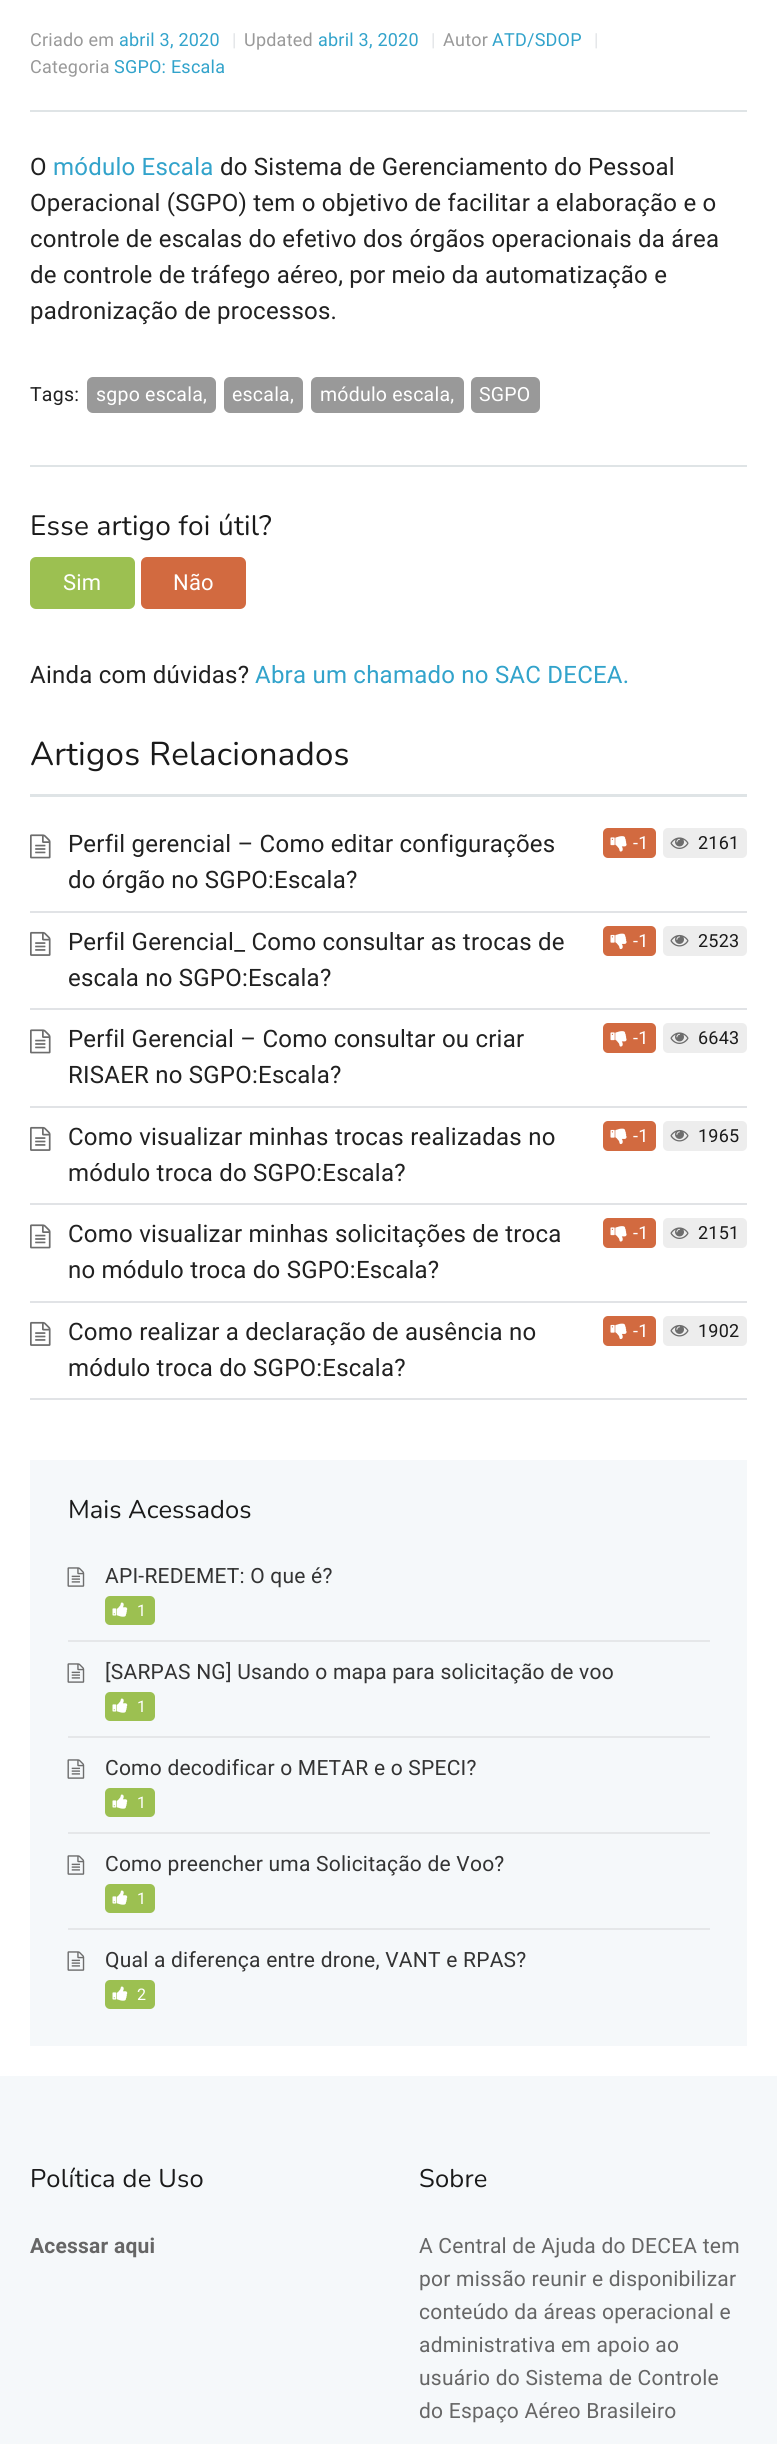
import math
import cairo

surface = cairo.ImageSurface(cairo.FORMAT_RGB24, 777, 2444)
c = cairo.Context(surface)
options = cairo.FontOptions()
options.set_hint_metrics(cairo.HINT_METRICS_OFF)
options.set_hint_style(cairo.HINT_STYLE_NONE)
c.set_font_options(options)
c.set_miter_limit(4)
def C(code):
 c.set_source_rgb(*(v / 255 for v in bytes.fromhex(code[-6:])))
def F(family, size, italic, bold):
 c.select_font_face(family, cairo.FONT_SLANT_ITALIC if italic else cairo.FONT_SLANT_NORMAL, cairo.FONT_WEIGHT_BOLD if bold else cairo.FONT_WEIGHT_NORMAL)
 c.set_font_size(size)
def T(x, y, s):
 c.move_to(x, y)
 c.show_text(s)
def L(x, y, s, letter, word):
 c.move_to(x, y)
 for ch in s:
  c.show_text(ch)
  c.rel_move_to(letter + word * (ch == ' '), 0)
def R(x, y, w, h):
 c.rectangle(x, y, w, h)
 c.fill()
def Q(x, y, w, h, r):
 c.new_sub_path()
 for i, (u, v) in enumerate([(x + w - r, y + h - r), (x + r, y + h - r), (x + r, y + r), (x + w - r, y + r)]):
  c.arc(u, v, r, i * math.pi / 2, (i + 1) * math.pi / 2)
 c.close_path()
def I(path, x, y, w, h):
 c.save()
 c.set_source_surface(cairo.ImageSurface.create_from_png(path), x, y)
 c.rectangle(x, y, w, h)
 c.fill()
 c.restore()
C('ffffff')
c.paint()
C('dfe4e6')
R(30,110,717,2)
F('Roboto',18,0,0)
C('999999')
L(30,46,'Criado em',.23,0)
C('32a3cb')
L(119,46,'abril 3, 2020',.23,0)
C('e1e3e6')
L(232,46,'|',.23,0)
C('999999')
L(244,46,'Updated',.23,0)
C('32a3cb')
L(318,46,'abril 3, 2020',.23,0)
C('e1e3e6')
L(431,46,'|',.23,0)
C('999999')
L(443,46,'Autor',.23,0)
C('32a3cb')
L(492,46,'ATD/SDOP',.23,0)
C('e1e3e6')
L(594,46,'|',.23,0)
C('999999')
L(30,73,'Categoria',.23,0)
C('32a3cb')
L(114,73,'SGPO: Escala',.23,0)
F('Roboto',24,0,0)
C('212121')
L(30,175,'O',.23,0)
C('32a3cb')
L(53,175,'módulo Escala',.23,0)
C('212121')
L(220,175,'do Sistema de Gerenciamento do Pessoal',.23,0)
L(30,211,'Operacional (SGPO) tem o objetivo de facilitar a elaboração e o',.23,0)
L(30,247,'controle de escalas do efetivo dos órgãos operacionais da área',.23,0)
L(30,283,'de controle de tráfego aéreo, por meio da automatização e',.23,0)
L(30,319,'padronização de processos.',.23,0)
C('dfe4e6')
R(30,465,717,2)
F('Roboto',19.5,0,0)
C('212121')
L(30,401,'Tags:',.23,0)
C('999999')
Q(87,377,129,36,6)
c.fill()
C('ffffff')
L(96,401,'sgpo escala,',.23,0)
C('999999')
Q(224,377,79,36,6)
c.fill()
C('ffffff')
L(232,401,'escala,',.23,0)
C('999999')
Q(311,377,153,36,6)
c.fill()
C('ffffff')
L(320,401,'módulo escala,',.23,0)
C('999999')
Q(471,377,69,36,6)
c.fill()
C('ffffff')
L(479,401,'SGPO',.23,0)
F('Nunito ExtraLight',28,0,0)
C('1a1a1a')
L(30,535,'Esse artigo foi útil?',.23,0)
C('9cc051')
Q(30,557,105,52,6)
c.fill()
F('Roboto',22,0,0)
C('ffffff')
L(63,590,'Sim',.23,0)
C('d26a40')
Q(141,557,105,52,6)
c.fill()
C('ffffff')
L(173,590,'Não',.23,0)
F('Roboto',24,0,0)
C('212121')
L(30,683,'Ainda com dúvidas?',.23,0)
C('32a3cb')
L(255,683,'Abra um chamado no SAC DECEA.',.23,0)
C('dfe4e6')
R(30,794,717,3)
F('Nunito ExtraLight',33,0,0)
C('1a1a1a')
L(30,765,'Artigos Relacionados',.23,0)
C('e1e3e6')
R(30,911,717,2)
I('1.png',30,834,21,25)
F('Roboto',24,0,0)
C('212121')
L(68,852,'Perfil gerencial – Como editar configurações',.23,0)
C('d26a40')
Q(603,828,53,30,5)
c.fill()
I('2.png',610,836,17,16)
F('Roboto',18,0,0)
C('ffffff')
L(633,849,'-1',.23,0)
C('ededed')
Q(663,828,84,30,5)
c.fill()
I('3.png',670,837,19,12)
C('1a1a1a')
L(698,849,'2161',.23,0)
F('Roboto',24,0,0)
C('212121')
L(68,888,'do órgão no SGPO:Escala?',.23,0)
C('e1e3e6')
R(30,1008,717,2)
I('4.png',30,931,21,25)
C('212121')
L(68,950,'Perfil Gerencial_ Como consultar as trocas de',.23,0)
C('d26a40')
Q(603,926,53,30,5)
c.fill()
I('5.png',610,933,17,17)
F('Roboto',18,0,0)
C('ffffff')
L(633,947,'-1',.23,0)
C('ededed')
Q(663,926,84,30,5)
c.fill()
I('6.png',670,934,19,13)
C('1a1a1a')
L(698,947,'2523',.23,0)
F('Roboto',24,0,0)
C('212121')
L(68,986,'escala no SGPO:Escala?',.23,0)
C('e1e3e6')
R(30,1106,717,2)
I('1.png',30,1029,21,25)
C('212121')
L(68,1047,'Perfil Gerencial – Como consultar ou criar',.23,0)
C('d26a40')
Q(603,1023,53,30,5)
c.fill()
I('2.png',610,1031,17,16)
F('Roboto',18,0,0)
C('ffffff')
L(633,1044,'-1',.23,0)
C('ededed')
Q(663,1023,84,30,5)
c.fill()
I('3.png',670,1032,19,12)
C('1a1a1a')
L(698,1044,'6643',.23,0)
F('Roboto',24,0,0)
C('212121')
L(68,1083,'RISAER no SGPO:Escala?',.23,0)
C('e1e3e6')
R(30,1203,717,2)
I('4.png',30,1126,21,25)
C('212121')
L(68,1145,'Como visualizar minhas trocas realizadas no',.23,0)
C('d26a40')
Q(603,1121,53,30,5)
c.fill()
I('5.png',610,1128,17,17)
F('Roboto',18,0,0)
C('ffffff')
L(633,1142,'-1',.23,0)
C('ededed')
Q(663,1121,84,30,5)
c.fill()
I('6.png',670,1129,19,13)
C('1a1a1a')
L(698,1142,'1965',.23,0)
F('Roboto',24,0,0)
C('212121')
L(68,1181,'módulo troca do SGPO:Escala?',.23,0)
C('e1e3e6')
R(30,1301,717,2)
I('1.png',30,1224,21,25)
C('212121')
L(68,1242,'Como visualizar minhas solicitações de troca',.23,0)
C('d26a40')
Q(603,1218,53,30,5)
c.fill()
I('2.png',610,1226,17,16)
F('Roboto',18,0,0)
C('ffffff')
L(633,1239,'-1',.23,0)
C('ededed')
Q(663,1218,84,30,5)
c.fill()
I('3.png',670,1227,19,12)
C('1a1a1a')
L(698,1239,'2151',.23,0)
F('Roboto',24,0,0)
C('212121')
L(68,1278,'no módulo troca do SGPO:Escala?',.23,0)
C('e1e3e6')
R(30,1398,717,2)
I('4.png',30,1321,21,25)
C('212121')
L(68,1340,'Como realizar a declaração de ausência no',.23,0)
C('d26a40')
Q(603,1316,53,30,5)
c.fill()
I('5.png',610,1323,17,17)
F('Roboto',18,0,0)
C('ffffff')
L(633,1337,'-1',.23,0)
C('ededed')
Q(663,1316,84,30,5)
c.fill()
I('6.png',670,1324,19,13)
C('1a1a1a')
L(698,1337,'1902',.23,0)
F('Roboto',24,0,0)
C('212121')
L(68,1376,'módulo troca do SGPO:Escala?',.23,0)
C('f5f8fa')
R(30,1460,717,586)
F('Nunito ExtraLight',25.5,0,0)
C('1a1a1a')
T(68,1518,'Mais Acessados')
C('e5e7e9')
R(68,1640,642,2)
I('7.png',67,1567,18,20)
F('Roboto',21,0,0)
C('333333')
L(105,1583,'API-REDEMET: O que é?',.23,0)
C('9cc051')
Q(105,1596,50,29,5)
c.fill()
I('8.png',112,1602,16,15)
F('Roboto',16,0,0)
C('ffffff')
L(137,1616,'1',.23,0)
C('e5e7e9')
R(68,1736,642,2)
I('7.png',67,1663,18,20)
F('Roboto',21,0,0)
C('333333')
L(105,1679,'[SARPAS NG] Usando o mapa para solicitação de voo',.23,0)
C('9cc051')
Q(105,1692,50,29,5)
c.fill()
I('8.png',112,1698,16,15)
F('Roboto',16,0,0)
C('ffffff')
L(137,1712,'1',.23,0)
C('e5e7e9')
R(68,1832,642,2)
I('7.png',67,1759,18,20)
F('Roboto',21,0,0)
C('333333')
L(105,1775,'Como decodificar o METAR e o SPECI?',.23,0)
C('9cc051')
Q(105,1788,50,29,5)
c.fill()
I('8.png',112,1794,16,15)
F('Roboto',16,0,0)
C('ffffff')
L(137,1808,'1',.23,0)
C('e5e7e9')
R(68,1928,642,2)
I('7.png',67,1855,18,20)
F('Roboto',21,0,0)
C('333333')
L(105,1871,'Como preencher uma Solicitação de Voo?',.23,0)
C('9cc051')
Q(105,1884,50,29,5)
c.fill()
I('8.png',112,1890,16,15)
F('Roboto',16,0,0)
C('ffffff')
L(137,1904,'1',.23,0)
I('7.png',67,1951,18,20)
F('Roboto',21,0,0)
C('333333')
L(105,1967,'Qual a diferença entre drone, VANT e RPAS?',.23,0)
C('9cc051')
Q(105,1980,50,29,5)
c.fill()
I('8.png',112,1986,16,15)
F('Roboto',16,0,0)
C('ffffff')
L(137,2000,'2',.23,0)
C('f5f8fa')
R(0,2076,777,368)
F('Nunito ExtraLight',25.5,0,0)
C('1a1a1a')
L(30,2187,'Política de Uso',.23,0)
F('Roboto',21,0,1)
C('666666')
L(30,2253,'Acessar aqui',.23,0)
F('Nunito ExtraLight',25.5,0,0)
C('1a1a1a')
L(419,2187,'Sobre',.23,0)
F('Roboto',21,0,0)
C('666666')
L(419,2253,'A Central de Ajuda do DECEA tem',.23,0)
L(419,2286,'por missão reunir e disponibilizar',.23,0)
L(419,2319,'conteúdo da áreas operacional e',.23,0)
L(419,2352,'administrativa em apoio ao',.23,0)
L(419,2385,'usuário do Sistema de Controle',.23,0)
L(419,2418,'do Espaço Aéreo Brasileiro',.23,0)
surface.write_to_png('o.png')
